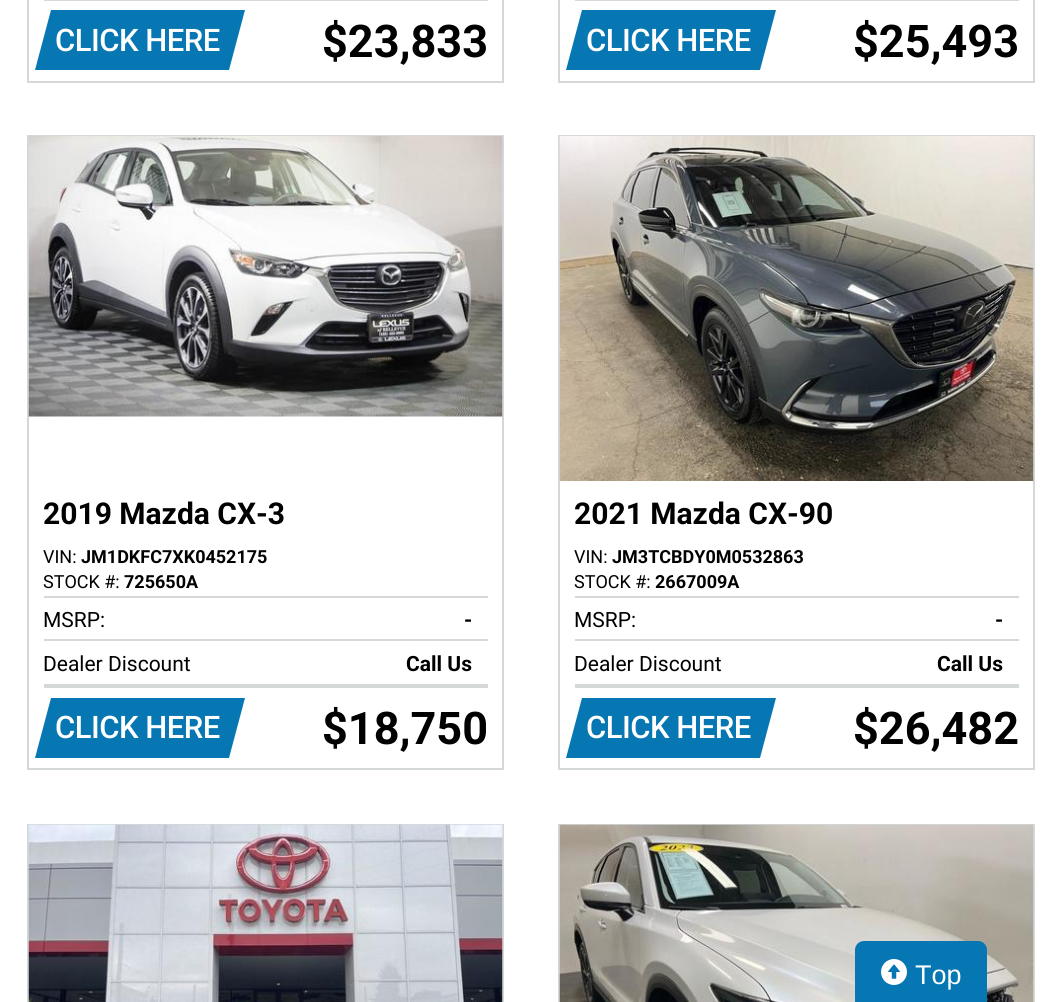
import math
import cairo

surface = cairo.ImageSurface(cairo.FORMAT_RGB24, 1061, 1002)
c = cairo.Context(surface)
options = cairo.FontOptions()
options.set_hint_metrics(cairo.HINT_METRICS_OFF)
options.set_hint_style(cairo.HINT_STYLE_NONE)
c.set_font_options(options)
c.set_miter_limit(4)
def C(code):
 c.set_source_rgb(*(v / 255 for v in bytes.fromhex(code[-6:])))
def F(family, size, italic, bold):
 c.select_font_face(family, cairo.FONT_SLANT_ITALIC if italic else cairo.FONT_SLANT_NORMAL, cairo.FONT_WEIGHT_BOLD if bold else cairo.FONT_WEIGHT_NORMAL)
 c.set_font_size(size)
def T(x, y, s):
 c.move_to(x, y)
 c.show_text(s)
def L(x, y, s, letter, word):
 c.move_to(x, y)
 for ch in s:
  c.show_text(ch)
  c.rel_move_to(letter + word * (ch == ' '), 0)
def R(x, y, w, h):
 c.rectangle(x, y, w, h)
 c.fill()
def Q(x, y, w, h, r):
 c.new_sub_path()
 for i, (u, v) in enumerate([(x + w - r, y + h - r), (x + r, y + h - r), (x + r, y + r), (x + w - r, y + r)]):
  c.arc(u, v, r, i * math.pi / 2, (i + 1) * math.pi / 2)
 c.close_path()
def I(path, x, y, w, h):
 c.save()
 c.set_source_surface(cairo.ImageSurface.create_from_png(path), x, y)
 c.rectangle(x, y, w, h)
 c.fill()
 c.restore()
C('ffffff')
c.paint()
c.rectangle(28,-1,475,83)
C('d4d8d9')
c.stroke()
R(44,0,444,1)
C('0777b3')
c.new_path()
c.move_to(51,10)
c.line_to(245,10)
c.line_to(229,70)
c.line_to(35,70)
c.close_path()
c.fill()
F('Roboto Medium',31,0,0)
C('ffffff')
L(55,51,'CLICK HERE',-.5,0)
F('Roboto',45,0,1)
C('000000')
T(322,57,'$23,833')
c.rectangle(559,-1,475,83)
C('d4d8d9')
c.stroke()
R(575,0,444,1)
C('0777b3')
c.new_path()
c.move_to(582,10)
c.line_to(776,10)
c.line_to(760,70)
c.line_to(566,70)
c.close_path()
c.fill()
F('Roboto Medium',31,0,0)
C('ffffff')
L(586,51,'CLICK HERE',-.5,0)
F('Roboto',45,0,1)
C('000000')
T(853,57,'$25,493')
c.rectangle(28,136,475,633)
C('d4d8d9')
c.stroke()
I('1.png',28,136,475,281)
F('Roboto',30,0,1)
C('000000')
T(43,524,'2019 Mazda CX-3')
F('Roboto',18,0,0)
T(43,563,'VIN:')
F('Roboto',18,0,1)
T(81,563,'JM1DKFC7XK0452175')
F('Roboto',18,0,0)
T(43,588,'STOCK #:')
F('Roboto',18,0,1)
T(124,588,'725650A')
C('d4d8d9')
R(44,596,444,2)
R(44,639,444,2)
F('Roboto',21,0,0)
C('000000')
T(43,627,'MSRP:')
F('Roboto',21,0,1)
T(464,627,'-')
C('d4d8d9')
R(44,684,444,4)
F('Roboto',21,0,0)
C('000000')
T(43,671,'Dealer Discount')
F('Roboto',21,0,1)
T(406,671,'Call Us')
C('0777b3')
c.new_path()
c.move_to(51,698)
c.line_to(245,698)
c.line_to(229,758)
c.line_to(35,758)
c.close_path()
c.fill()
F('Roboto Medium',31,0,0)
C('ffffff')
L(55,738,'CLICK HERE',-.5,0)
F('Roboto',45,0,1)
C('000000')
T(322,744,'$18,750')
c.rectangle(559,136,475,633)
C('d4d8d9')
c.stroke()
I('2.png',559,136,475,345)
F('Roboto',30,0,1)
C('000000')
T(574,524,'2021 Mazda CX-90')
F('Roboto',18,0,0)
T(574,563,'VIN:')
F('Roboto',18,0,1)
T(612,563,'JM3TCBDY0M0532863')
F('Roboto',18,0,0)
T(574,588,'STOCK #:')
F('Roboto',18,0,1)
T(655,588,'2667009A')
C('d4d8d9')
R(575,596,444,2)
R(575,639,444,2)
F('Roboto',21,0,0)
C('000000')
T(574,627,'MSRP:')
F('Roboto',21,0,1)
T(995,627,'-')
C('d4d8d9')
R(575,684,444,4)
F('Roboto',21,0,0)
C('000000')
T(574,671,'Dealer Discount')
F('Roboto',21,0,1)
T(937,671,'Call Us')
C('0777b3')
c.new_path()
c.move_to(582,698)
c.line_to(776,698)
c.line_to(760,758)
c.line_to(566,758)
c.close_path()
c.fill()
F('Roboto Medium',31,0,0)
C('ffffff')
L(586,738,'CLICK HERE',-.5,0)
F('Roboto',45,0,1)
C('000000')
T(853,744,'$26,482')
c.rectangle(28,825,475,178)
C('d4d8d9')
c.stroke()
I('3.png',28,824,475,178)
c.rectangle(559,825,475,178)
c.stroke()
I('4.png',559,824,475,178)
C('0777b3')
Q(856,942,130,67,8)
c.fill_preserve()
c.stroke()
I('5.png',881,959,26,26)
F('Liberation Sans',27,0,0)
C('ffffff')
T(915,984,'Top')
surface.write_to_png('o.png')
